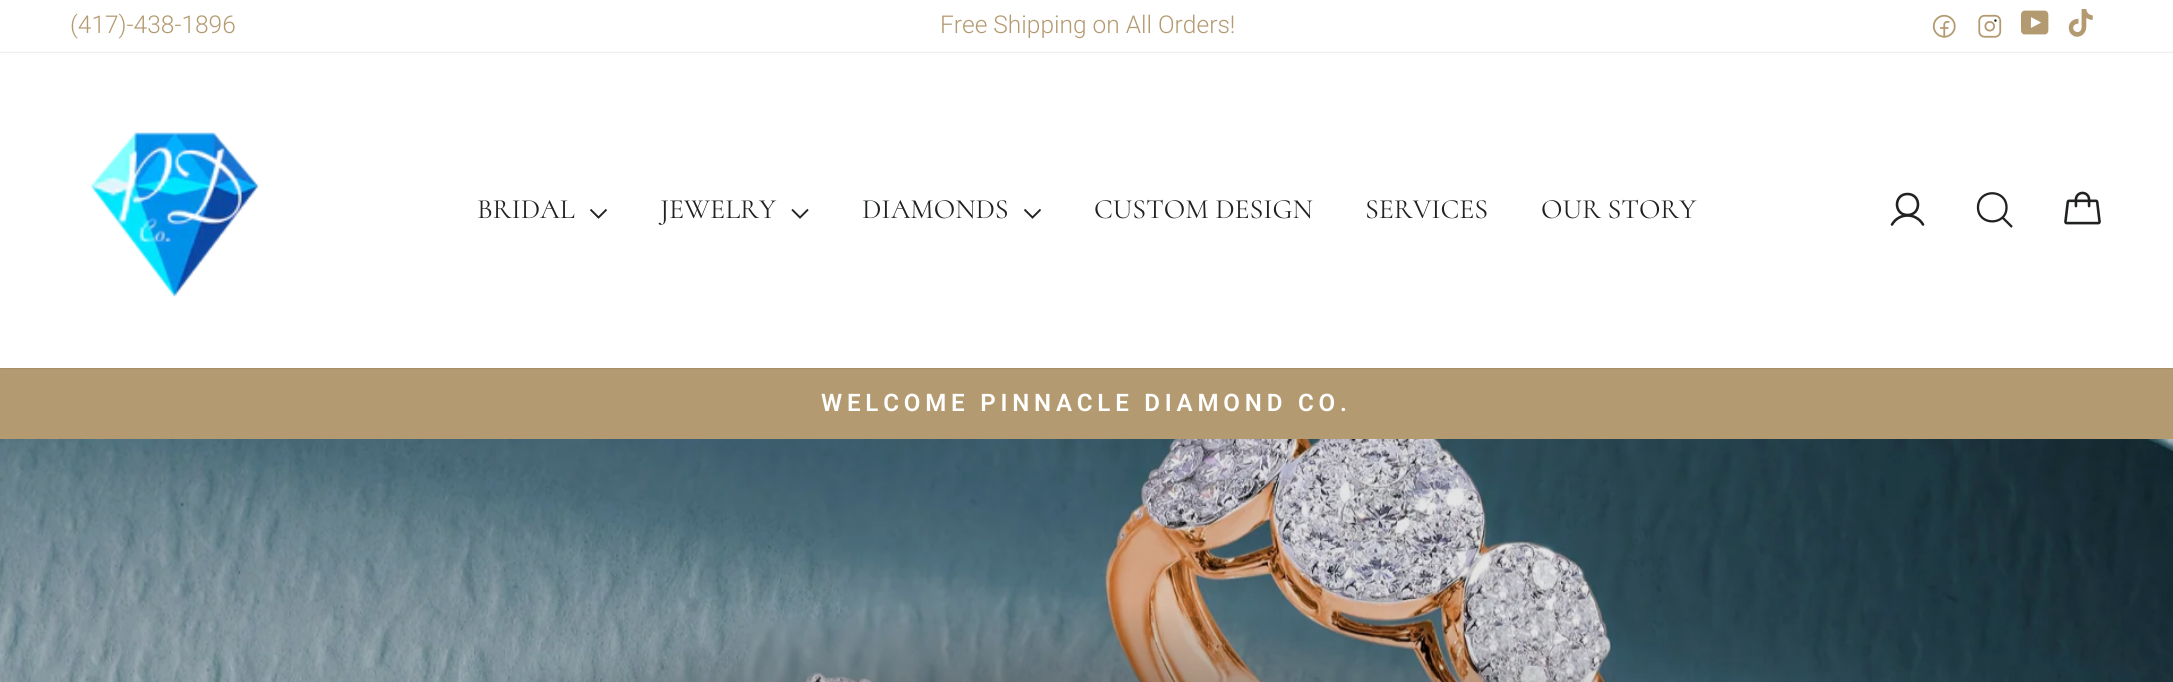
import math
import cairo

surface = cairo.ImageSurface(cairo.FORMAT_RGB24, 2173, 682)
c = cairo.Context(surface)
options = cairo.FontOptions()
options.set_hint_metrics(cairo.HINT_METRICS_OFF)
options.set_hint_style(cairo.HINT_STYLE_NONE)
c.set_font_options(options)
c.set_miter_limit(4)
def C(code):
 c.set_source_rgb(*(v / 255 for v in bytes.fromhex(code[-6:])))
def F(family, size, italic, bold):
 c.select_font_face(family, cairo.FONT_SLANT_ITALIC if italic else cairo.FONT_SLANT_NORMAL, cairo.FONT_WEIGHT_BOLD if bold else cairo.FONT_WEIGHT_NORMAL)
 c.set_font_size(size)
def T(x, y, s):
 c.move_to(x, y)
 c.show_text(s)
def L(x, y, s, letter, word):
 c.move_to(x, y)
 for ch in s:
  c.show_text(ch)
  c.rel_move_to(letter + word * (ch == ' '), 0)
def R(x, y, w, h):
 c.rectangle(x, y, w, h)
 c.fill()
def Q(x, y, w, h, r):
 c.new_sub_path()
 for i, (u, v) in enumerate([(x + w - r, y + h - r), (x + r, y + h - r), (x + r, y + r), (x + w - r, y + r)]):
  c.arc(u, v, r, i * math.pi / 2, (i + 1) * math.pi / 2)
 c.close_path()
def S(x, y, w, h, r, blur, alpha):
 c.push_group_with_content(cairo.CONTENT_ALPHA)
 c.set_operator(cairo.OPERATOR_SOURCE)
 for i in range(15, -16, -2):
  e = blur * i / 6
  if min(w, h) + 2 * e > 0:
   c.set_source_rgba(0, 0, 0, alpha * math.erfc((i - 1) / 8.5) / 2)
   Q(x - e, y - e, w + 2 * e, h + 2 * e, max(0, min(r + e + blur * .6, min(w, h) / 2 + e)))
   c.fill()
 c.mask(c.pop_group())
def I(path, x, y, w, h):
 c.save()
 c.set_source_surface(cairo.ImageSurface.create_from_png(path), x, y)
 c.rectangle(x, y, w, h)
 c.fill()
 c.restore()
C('ffffff')
c.paint()
F('Roboto Light',24.5,0,0)
C('b49a71')
T(70,33,'(417)-438-1896')
T(940,33,'Free Shipping on All Orders!')
I('1.png',1932,14,24,24)
I('2.png',1978,14,24,24)
I('3.png',2021,10,28,25)
I('4.png',2068,9,25,28)
R(0,368,2173,71)
C('000000')
S(0,53,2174,315,0,1,.2)
C('ffffff')
R(0,53,2173,315)
I('5.png',90,132,170,165)
F('Cormorant',28,0,0)
C('1f2122')
T(477,218,'BRIDAL')
c.new_path()
c.move_to(590.5,209.5)
c.line_to(598.5,217.5)
c.line_to(606.5,209.5)
c.set_line_width(1.9)
c.stroke()
T(660,218,'JEWELRY')
c.new_path()
c.move_to(792,209.5)
c.line_to(800,217.5)
c.line_to(808,209.5)
c.stroke()
T(862,218,'DIAMONDS')
c.new_path()
c.move_to(1024.5,209.5)
c.line_to(1032.5,217.5)
c.line_to(1040.5,209.5)
c.stroke()
T(1094,218,'CUSTOM DESIGN')
T(1365,218,'SERVICES')
T(1541,218,'OUR STORY')
c.new_path()
c.move_to(1907.5,215)
c.curve_to(1921.5,215,1921.5,194,1907.5,194)
c.curve_to(1893.5,194,1893.5,215,1907.5,215)
c.close_path()
c.move_to(1892,224.5)
c.curve_to(1899,212.5,1916,212.5,1923,224.5)
c.set_line_width(2.6)
c.set_line_cap(cairo.LINE_CAP_ROUND)
c.set_line_join(cairo.LINE_JOIN_ROUND)
c.stroke()
c.new_path()
c.move_to(2006.5,207.5)
c.curve_to(2006.5,226,1978,226,1978,207.5)
c.curve_to(1978,188.5,2006.5,188.5,2006.5,207.5)
c.close_path()
c.move_to(2012,227)
c.line_to(2002.5,217.5)
c.set_line_width(2.3)
c.set_line_cap(cairo.LINE_CAP_BUTT)
c.set_line_join(cairo.LINE_JOIN_MITER)
c.stroke()
I('6.png',2064,191,37,34)
F('Roboto SemiBold',24.1,0,0)
C('ffffff')
L(821,411,'WELCOME PINNACLE DIAMOND CO.',4.8,0)
I('7.png',0,439,2173,243)
surface.write_to_png('o.png')
